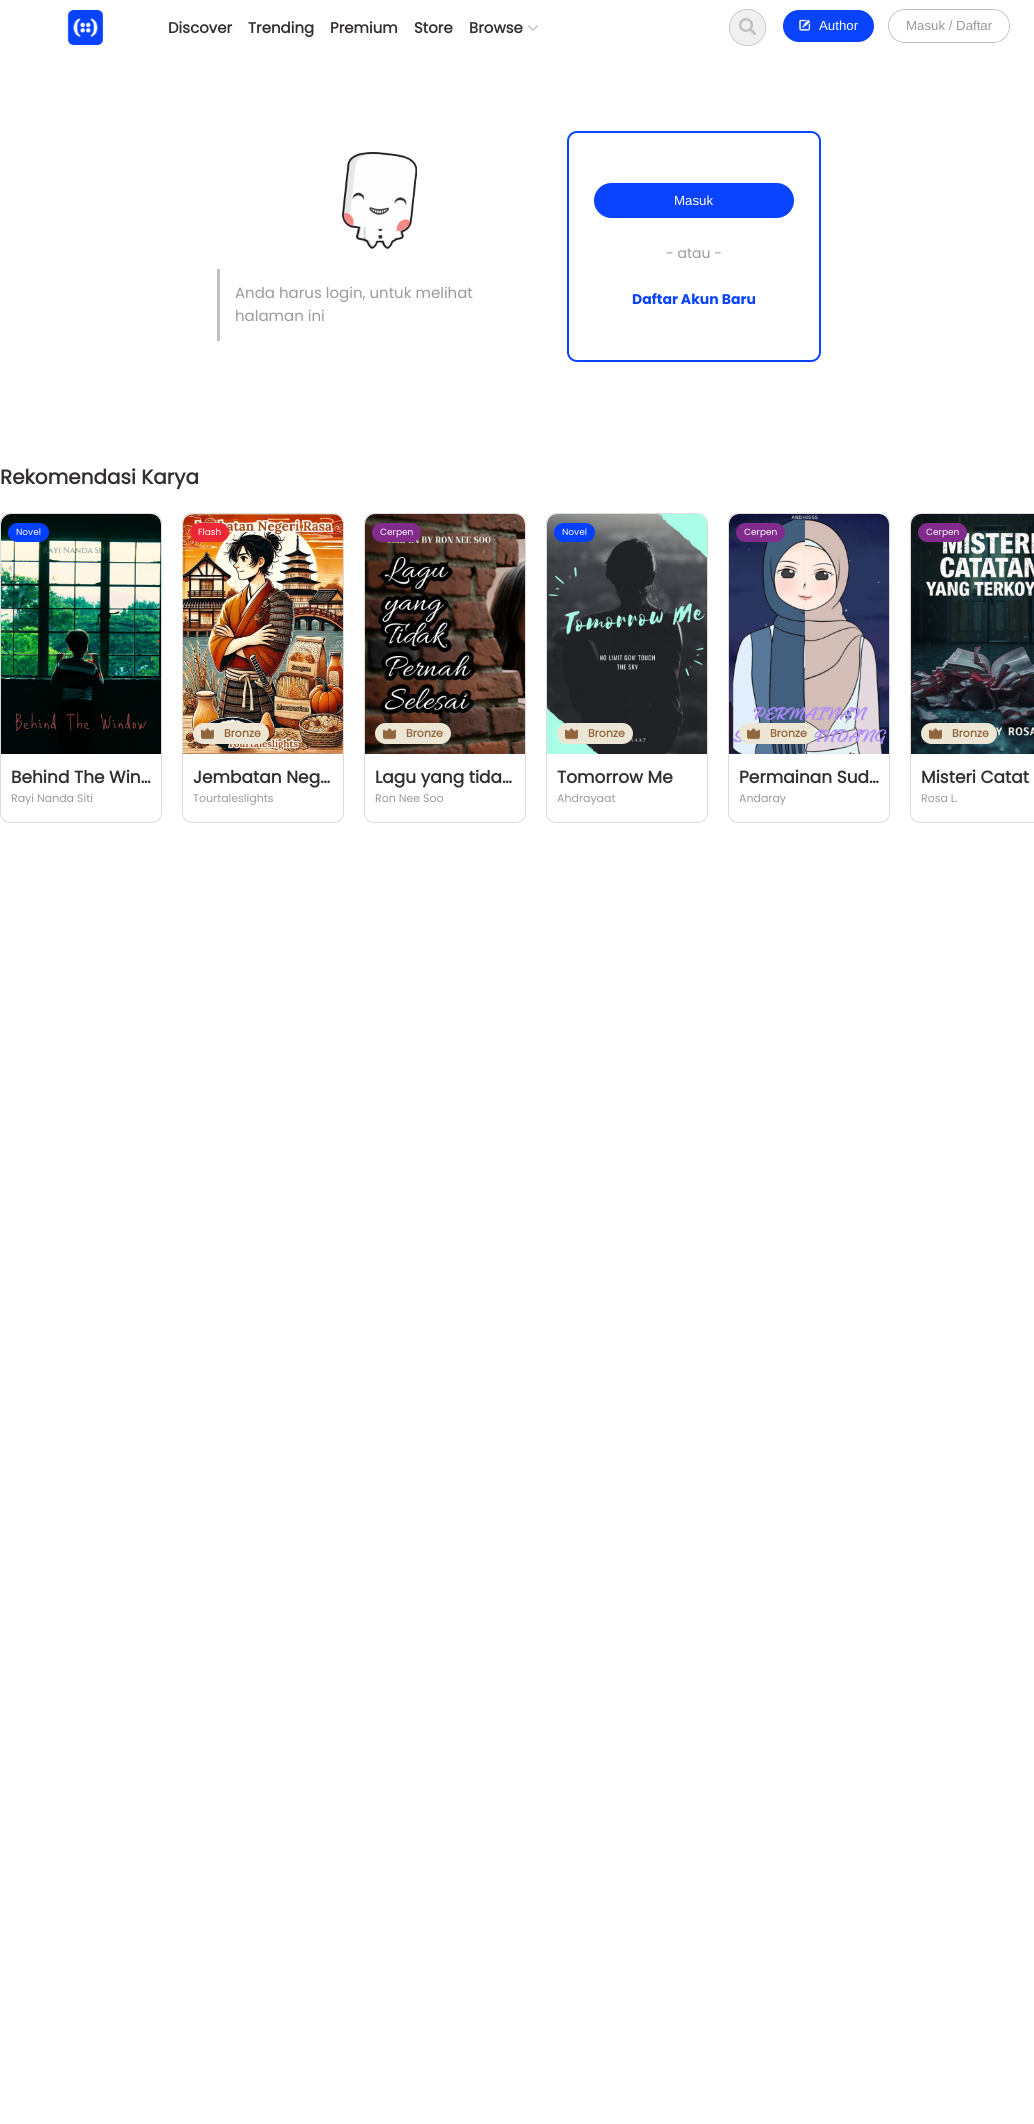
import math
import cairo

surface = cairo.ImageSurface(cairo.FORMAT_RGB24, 1034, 2124)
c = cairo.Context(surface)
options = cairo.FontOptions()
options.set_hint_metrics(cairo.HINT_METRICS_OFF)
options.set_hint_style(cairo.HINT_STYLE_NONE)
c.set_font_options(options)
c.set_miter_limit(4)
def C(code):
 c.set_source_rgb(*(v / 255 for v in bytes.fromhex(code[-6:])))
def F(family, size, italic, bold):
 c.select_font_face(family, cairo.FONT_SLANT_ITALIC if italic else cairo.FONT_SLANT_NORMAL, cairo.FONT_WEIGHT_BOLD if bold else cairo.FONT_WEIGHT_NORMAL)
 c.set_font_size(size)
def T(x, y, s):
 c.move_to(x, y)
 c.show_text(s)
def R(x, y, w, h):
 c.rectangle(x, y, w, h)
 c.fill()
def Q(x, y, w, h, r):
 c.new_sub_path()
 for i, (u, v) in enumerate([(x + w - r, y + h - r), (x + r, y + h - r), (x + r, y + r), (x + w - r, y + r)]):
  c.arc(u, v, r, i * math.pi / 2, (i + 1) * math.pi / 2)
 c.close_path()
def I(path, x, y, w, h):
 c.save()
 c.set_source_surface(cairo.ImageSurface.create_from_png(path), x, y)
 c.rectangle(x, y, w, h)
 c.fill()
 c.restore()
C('ffffff')
c.paint()
I('1.png',67,10,36,35)
F('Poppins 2',15,0,1)
C('342e34')
T(168,33,'Discover')
T(248,33,'Trending')
T(330,33,'Premium')
T(414,33,'Store')
T(469,33,'Browse')
I('2.png',528,25,10,6)
c.arc(747.5,27.5,18,0,2 * math.pi)
C('c0c0c0')
c.set_line_width(1)
c.stroke()
C('f0f0f0')
c.arc(747.5,27.5,17.5,0,2 * math.pi)
c.fill()
I('3.png',739,18,17,17)
C('0943fe')
Q(783,10,91,32,16)
c.fill()
I('4.png',799,19,11,12)
F('Liberation Sans',13.25,0,0)
C('ffffff')
T(819,30,'Author')
Q(888.5,9.5,121,33,16.5)
C('c0c0c0')
c.stroke()
C('ffffff')
Q(889,10,120,32,16)
c.fill()
C('9a9a9a')
T(906,30,'Masuk / Daftar')
I('5.png',342,152,75,97)
C('c0c0c0')
R(217,269,3,72)
F('Poppins',15,0,0)
C('9a9a9a')
T(235,298,'Anda harus login, untuk melihat')
T(235,321,'halaman ini')
Q(568,132,252,229,9)
C('0943fe')
c.set_line_width(2)
c.stroke()
Q(594,183,200,35,17.5)
c.fill()
F('Liberation Sans',13.25,0,0)
C('ffffff')
T(674,205,'Masuk')
F('Poppins',14,0,0)
C('9a9a9a')
T(666,258,'- atau -')
F('Poppins',14,0,1)
C('0943fe')
T(632,304,'Daftar Akun Baru')
F('Poppins 2',20,0,1)
C('342e34')
T(0,484,'Rekomendasi Karya')
Q(.5,513.5,161,309,9.5)
C('dcdcdc')
c.set_line_width(1)
c.stroke()
C('f0f0f0')
c.new_path()
c.move_to(11,514)
c.line_to(151,514)
c.curve_to(156.5,514,161,518.5,161,524)
c.line_to(161,754)
c.line_to(1,754)
c.line_to(1,524)
c.curve_to(1,518.5,5.5,514,11,514)
c.close_path()
c.fill()
I('6.png',1,514,160,240)
C('0440ff')
Q(8,523,41,19,9.5)
c.fill()
F('Poppins',9,0,0)
C('ffffff')
T(16,535,'Novel')
F('Poppins 2',17,0,1)
C('342e34')
T(11,783,'Behind The Win…')
F('Poppins',11,0,0)
C('9a9a9a')
T(11,802,'Rayi Nanda Siti')
Q(182.5,513.5,161,309,9.5)
C('dcdcdc')
c.stroke()
C('f0f0f0')
c.new_path()
c.move_to(193,514)
c.line_to(333,514)
c.curve_to(338.5,514,343,518.5,343,524)
c.line_to(343,754)
c.line_to(183,754)
c.line_to(183,524)
c.curve_to(183,518.5,187.5,514,193,514)
c.close_path()
c.fill()
I('7.png',183,514,160,240)
C('ed2836')
Q(190,523,39,19,9.5)
c.fill()
F('Poppins',9,0,0)
C('ffffff')
T(198,535,'Flash')
C('ede6d4')
Q(193,723,76,21,10.5)
c.fill()
I('8.png',201,728,13,12)
F('Poppins 2',11,0,1)
C('90663e')
T(224,737,'Bronze')
F('Poppins 2',17,0,1)
C('342e34')
T(193,783,'Jembatan Neg…')
F('Poppins',11,0,0)
C('9a9a9a')
T(193,802,'Tourtaleslights')
Q(364.5,513.5,161,309,9.5)
C('dcdcdc')
c.stroke()
C('f0f0f0')
c.new_path()
c.move_to(375,514)
c.line_to(515,514)
c.curve_to(520.5,514,525,518.5,525,524)
c.line_to(525,754)
c.line_to(365,754)
c.line_to(365,524)
c.curve_to(365,518.5,369.5,514,375,514)
c.close_path()
c.fill()
I('9.png',365,514,160,240)
C('812b8d')
Q(372,523,49,19,9.5)
c.fill()
F('Poppins',9,0,0)
C('ffffff')
T(380,535,'Cerpen')
C('ede6d4')
Q(375,723,76,21,10.5)
c.fill()
I('8.png',383,728,13,12)
F('Poppins 2',11,0,1)
C('90663e')
T(406,737,'Bronze')
F('Poppins 2',17,0,1)
C('342e34')
T(375,783,'Lagu yang tida…')
F('Poppins',11,0,0)
C('9a9a9a')
T(375,802,'Ron Nee Soo')
Q(546.5,513.5,161,309,9.5)
C('dcdcdc')
c.stroke()
C('f0f0f0')
c.new_path()
c.move_to(557,514)
c.line_to(697,514)
c.curve_to(702.5,514,707,518.5,707,524)
c.line_to(707,754)
c.line_to(547,754)
c.line_to(547,524)
c.curve_to(547,518.5,551.5,514,557,514)
c.close_path()
c.fill()
I('10.png',547,514,160,240)
C('0440ff')
Q(554,523,41,19,9.5)
c.fill()
F('Poppins',9,0,0)
C('ffffff')
T(562,535,'Novel')
C('ede6d4')
Q(557,723,76,21,10.5)
c.fill()
I('11.png',565,728,13,12)
F('Poppins 2',11,0,1)
C('90663e')
T(588,737,'Bronze')
F('Poppins 2',17,0,1)
C('342e34')
T(557,783,'Tomorrow Me')
F('Poppins',11,0,0)
C('9a9a9a')
T(557,802,'Ahdrayaat')
Q(728.5,513.5,161,309,9.5)
C('dcdcdc')
c.stroke()
C('f0f0f0')
c.new_path()
c.move_to(739,514)
c.line_to(879,514)
c.curve_to(884.5,514,889,518.5,889,524)
c.line_to(889,754)
c.line_to(729,754)
c.line_to(729,524)
c.curve_to(729,518.5,733.5,514,739,514)
c.close_path()
c.fill()
I('12.png',729,514,160,240)
C('812b8d')
Q(736,523,49,19,9.5)
c.fill()
F('Poppins',9,0,0)
C('ffffff')
T(744,535,'Cerpen')
C('ede6d4')
Q(739,723,76,21,10.5)
c.fill()
I('8.png',747,728,13,12)
F('Poppins 2',11,0,1)
C('90663e')
T(770,737,'Bronze')
F('Poppins 2',17,0,1)
C('342e34')
T(739,783,'Permainan Sud…')
F('Poppins',11,0,0)
C('9a9a9a')
T(739,802,'Andaray')
Q(910.5,513.5,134,309,9.5)
C('dcdcdc')
c.stroke()
C('f0f0f0')
c.new_path()
c.move_to(921,514)
c.line_to(1034,514)
c.line_to(1034,754)
c.line_to(911,754)
c.line_to(911,524)
c.curve_to(911,518.5,915.5,514,921,514)
c.close_path()
c.fill()
I('13.png',911,514,123,240)
C('812b8d')
Q(918,523,49,19,9.5)
c.fill()
F('Poppins',9,0,0)
C('ffffff')
T(926,535,'Cerpen')
C('ede6d4')
Q(921,723,76,21,10.5)
c.fill()
I('8.png',929,728,13,12)
F('Poppins 2',11,0,1)
C('90663e')
T(952,737,'Bronze')
F('Poppins 2',17,0,1)
C('342e34')
T(921,783,'Misteri Catat')
F('Poppins',11,0,0)
C('9a9a9a')
T(921,802,'Rosa L.')
surface.write_to_png('o.png')
